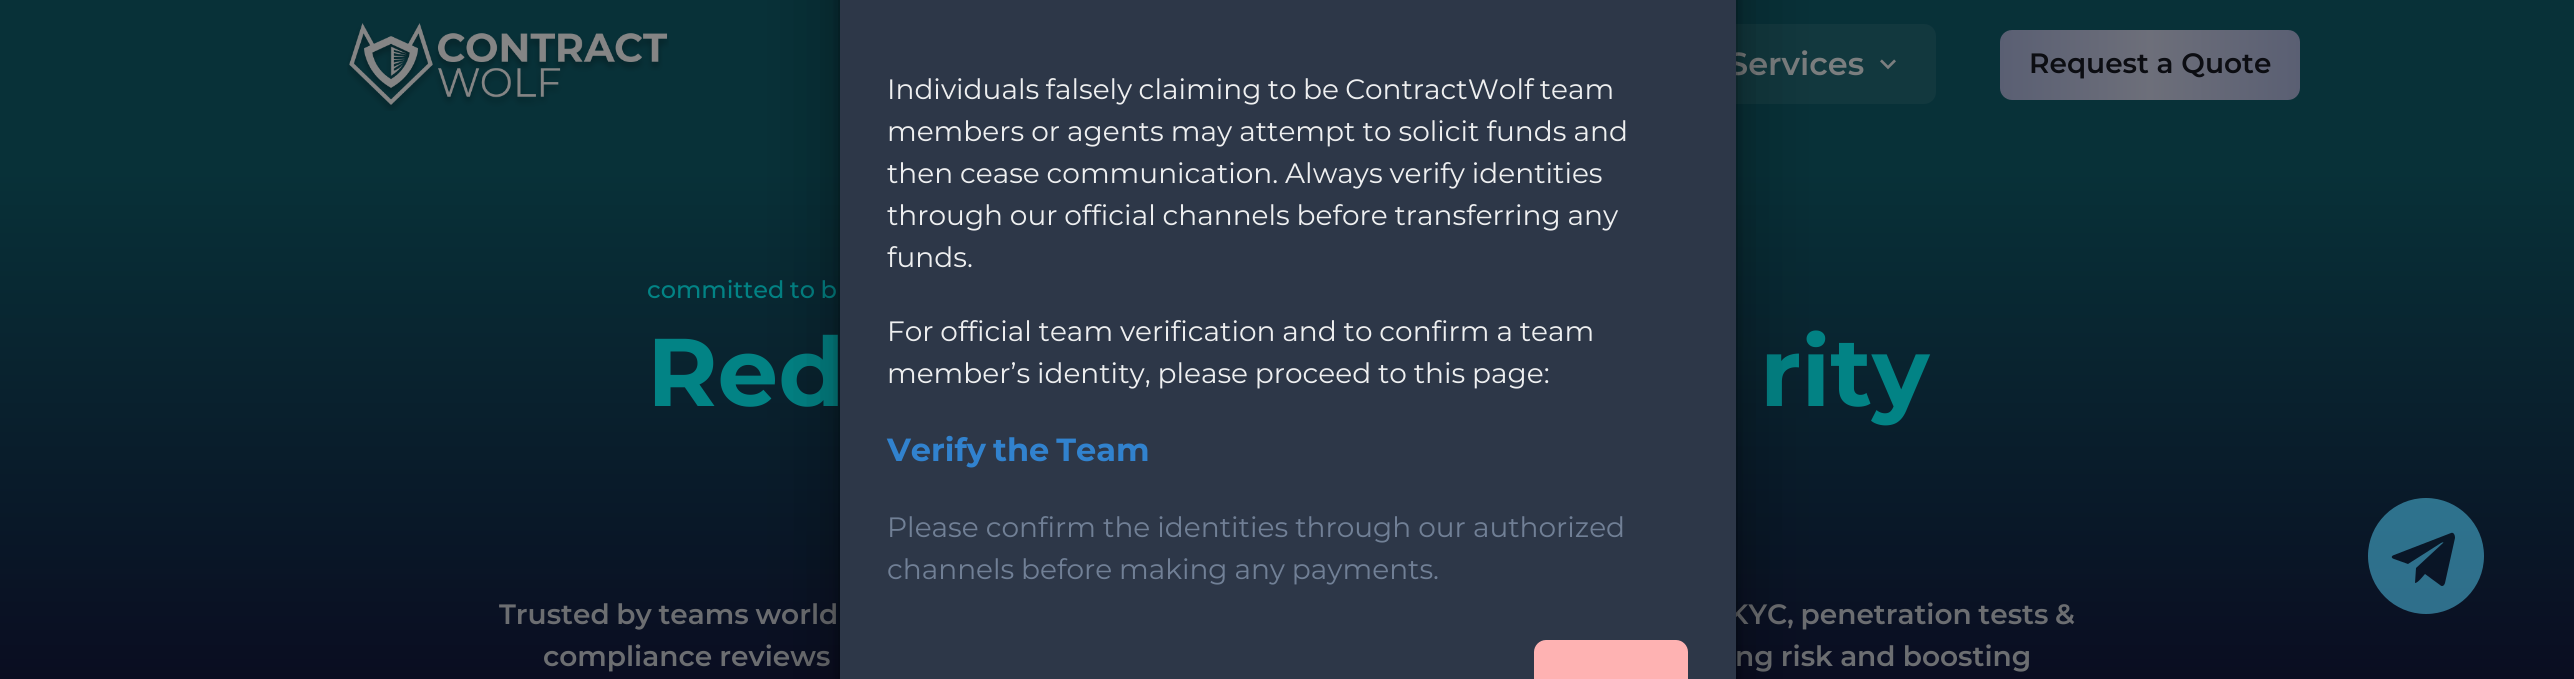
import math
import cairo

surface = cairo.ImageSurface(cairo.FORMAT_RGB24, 2574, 679)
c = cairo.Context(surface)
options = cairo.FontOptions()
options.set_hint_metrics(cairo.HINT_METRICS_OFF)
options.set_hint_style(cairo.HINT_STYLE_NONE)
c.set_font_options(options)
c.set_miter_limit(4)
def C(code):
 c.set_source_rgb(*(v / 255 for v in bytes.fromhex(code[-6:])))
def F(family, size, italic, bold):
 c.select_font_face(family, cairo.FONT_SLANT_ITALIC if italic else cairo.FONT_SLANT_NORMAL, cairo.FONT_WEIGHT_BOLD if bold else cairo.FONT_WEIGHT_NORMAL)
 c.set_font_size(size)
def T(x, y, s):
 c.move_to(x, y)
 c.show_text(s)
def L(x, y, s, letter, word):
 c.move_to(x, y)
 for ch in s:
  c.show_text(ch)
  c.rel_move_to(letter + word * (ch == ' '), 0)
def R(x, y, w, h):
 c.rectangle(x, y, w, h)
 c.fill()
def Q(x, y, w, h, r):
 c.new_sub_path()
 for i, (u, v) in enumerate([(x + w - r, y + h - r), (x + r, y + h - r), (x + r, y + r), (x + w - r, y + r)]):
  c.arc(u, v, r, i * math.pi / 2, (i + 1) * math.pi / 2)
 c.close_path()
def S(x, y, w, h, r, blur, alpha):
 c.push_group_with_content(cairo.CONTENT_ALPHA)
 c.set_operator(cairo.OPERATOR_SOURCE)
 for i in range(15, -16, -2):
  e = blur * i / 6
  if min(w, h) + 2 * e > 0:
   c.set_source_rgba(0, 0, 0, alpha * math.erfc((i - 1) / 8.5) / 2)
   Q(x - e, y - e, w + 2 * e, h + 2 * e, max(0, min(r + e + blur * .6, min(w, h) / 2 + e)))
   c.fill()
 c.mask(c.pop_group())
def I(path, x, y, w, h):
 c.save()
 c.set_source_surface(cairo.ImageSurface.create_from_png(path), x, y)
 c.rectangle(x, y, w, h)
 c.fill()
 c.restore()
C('ffffff')
c.paint()
gradient = cairo.LinearGradient(1287,0,1287,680)
gradient.add_color_stop_rgba(.25,0.031,0.192,0.22,1)
gradient.add_color_stop_rgba(1,0.039,0.051,0.129,1)
c.set_source(gradient)
R(0,0,2574,679)
I('1.png',347,23,322,88)
C('12383e')
Q(1696,24,240,80,12)
c.fill()
F('Montserrat SemiBold',32,0,0)
C('7b7e7f')
T(1728,75,'Services')
I('2.png',1880,59,16,11)
gradient = cairo.LinearGradient(2300,65,2000,65)
gradient.add_color_stop_rgba(0,0.353,0.373,0.451,1)
gradient.add_color_stop_rgba(.5,0.427,0.435,0.478,1)
gradient.add_color_stop_rgba(1,0.353,0.373,0.451,1)
c.set_source(gradient)
Q(2000,30,300,70,12)
c.fill()
F('Montserrat SemiBold',28,0,0)
C('0c0d12')
T(2029,73,'Request a Quote')
F('Montserrat Medium',24,0,0)
C('028385')
L(647,298,'committed to b',0,-1)
F('Montserrat',96,0,1)
T(647,406,'Red')
T(1760,406,'rity')
F('Montserrat SemiBold',28,0,0)
C('6c6e71')
L(499,624,'Trusted by teams world',0,-1)
L(1728,624,'KYC, penetration tests &',0,-1)
L(543,666,'compliance reviews',0,-.5)
L(1735,666,'ng risk and boosting',0,-.5)
C('000000')
S(840,-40,896,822,12,40,.4)
S(840,-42,896,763,12,10,.2)
c.rectangle(839,-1,898,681)
c.set_source_rgba(0,0,0,0.1)
c.stroke()
C('2d3748')
R(840,0,896,679)
F('Montserrat',28,0,0)
C('eeeff0')
L(887,99,'Individuals falsely claiming to be ContractWolf team',0,-1)
L(887,141,'members or agents may attempt to solicit funds and',0,-.25)
L(887,183,'then cease communication. Always verify identities',0,-.5)
L(887,225,'through our official channels before transferring any',0,-.5)
T(887,267,'funds.')
L(887,341,'For official team verification and to confirm a team',0,-.5)
L(887,383,'member’s identity, please proceed to this page:',0,-.5)
F('Montserrat',32,0,1)
C('3182ce')
L(887,461,'Verify the Team',0,-2)
F('Montserrat',28,0,0)
C('718096')
L(887,537,'Please confirm the identities through our authorized',0,-.25)
L(887,579,'channels before making any payments.',0,-.5)
C('feb2b2')
c.new_path()
c.move_to(1546,640)
c.line_to(1676,640)
c.curve_to(1682.5,640,1688,645.5,1688,652)
c.line_to(1688,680)
c.line_to(1534,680)
c.line_to(1534,652)
c.curve_to(1534,645.5,1539.5,640,1546,640)
c.close_path()
c.fill()
c.set_source_rgba(0.333,0.804,0.949,0.5)
c.new_path()
c.move_to(2426,498)
c.curve_to(2394,498,2368,524,2368,556)
c.curve_to(2368,588,2394,614,2426,614)
c.curve_to(2458,614,2484,588,2484,556)
c.curve_to(2484,524,2458,498,2426,498)
c.close_path()
c.move_to(2455,538)
c.line_to(2445,583)
c.curve_to(2444,586,2442,587,2440,585)
c.line_to(2425,574)
c.curve_to(2423,576,2418,583,2415,583)
c.line_to(2416,568)
c.line_to(2443,543)
c.curve_to(2444,542,2443,542,2441,543)
c.line_to(2408,564)
c.line_to(2394,559)
c.curve_to(2391,558,2391,556,2394,555)
c.line_to(2451,533)
c.curve_to(2453,532,2455,534,2455,538)
c.close_path()
c.fill()
surface.write_to_png('o.png')
